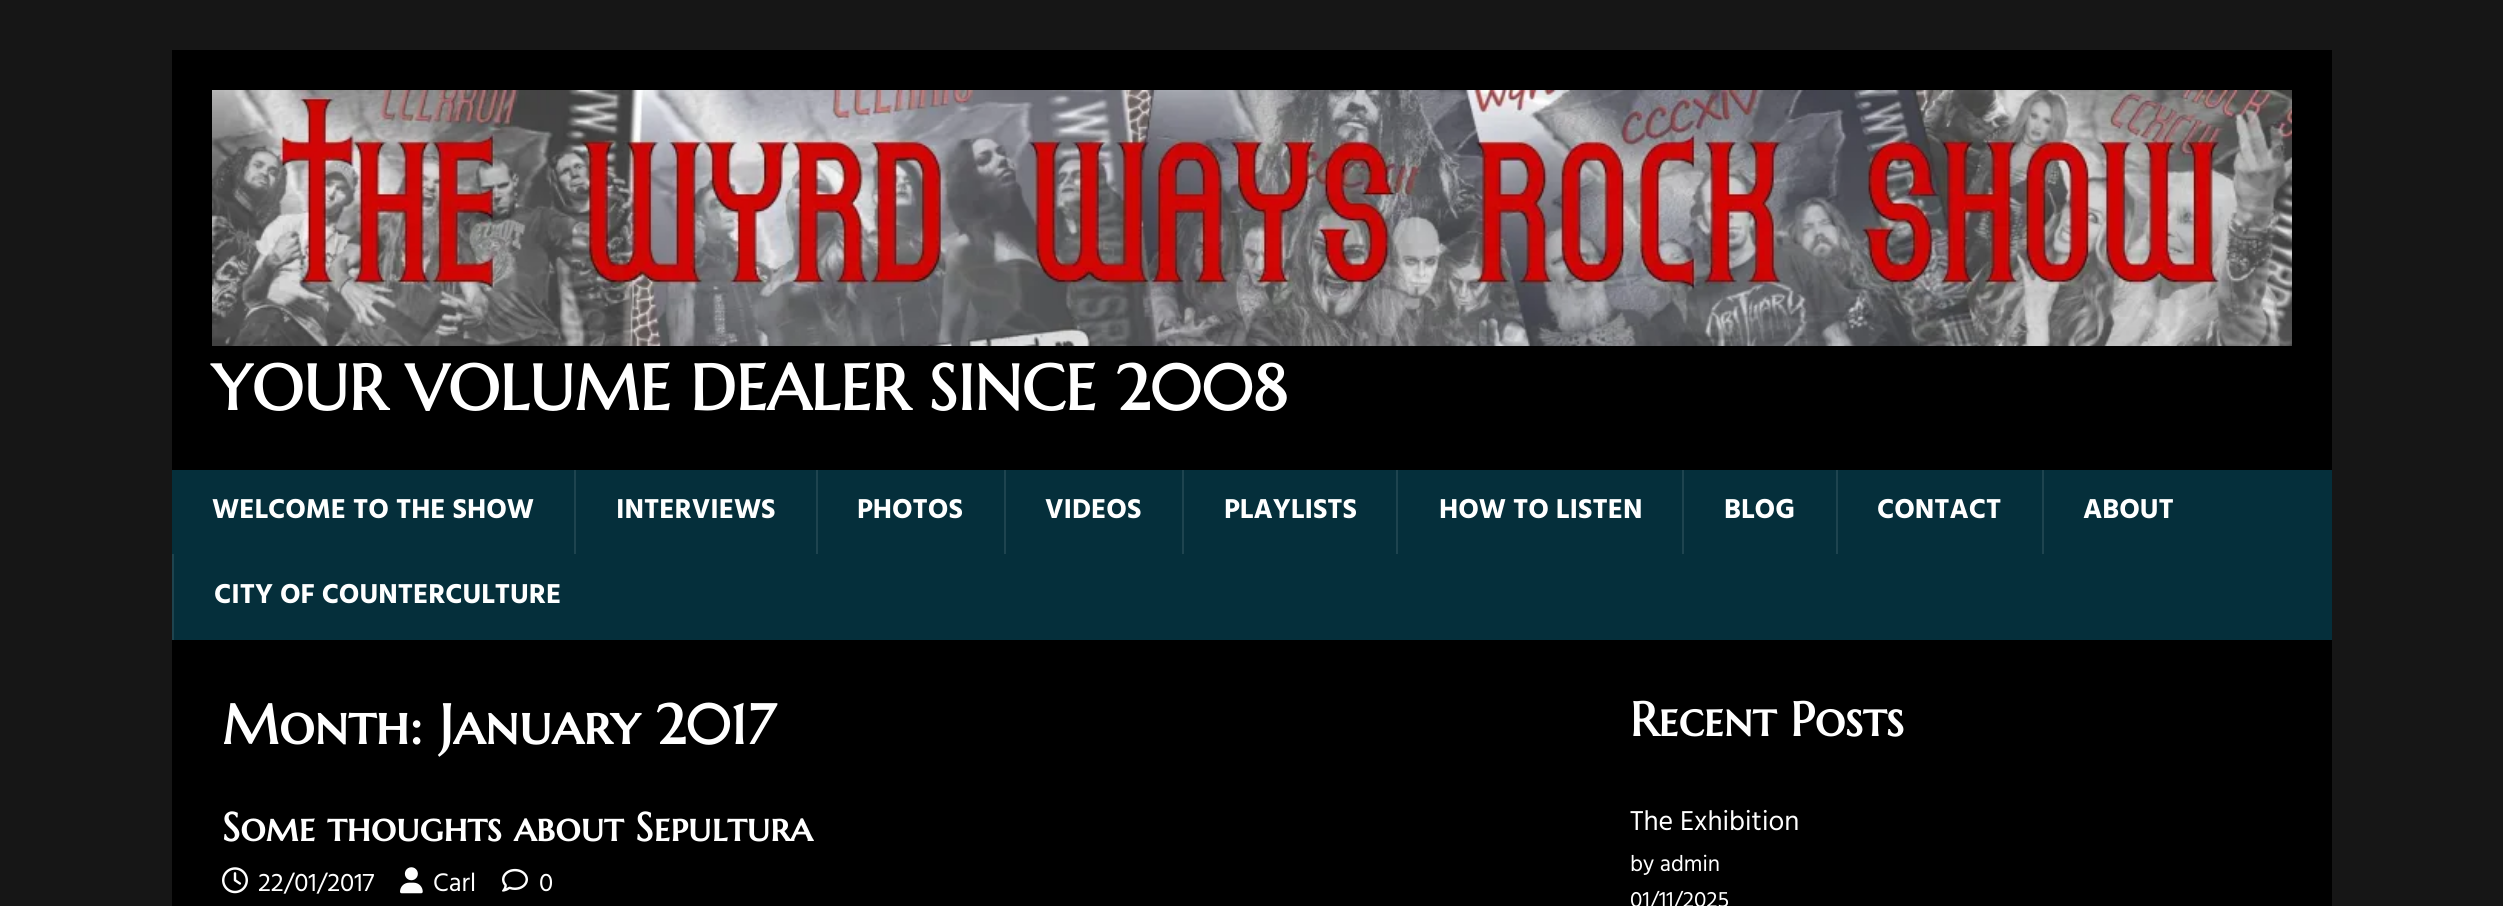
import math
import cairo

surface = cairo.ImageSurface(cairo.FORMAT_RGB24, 2503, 906)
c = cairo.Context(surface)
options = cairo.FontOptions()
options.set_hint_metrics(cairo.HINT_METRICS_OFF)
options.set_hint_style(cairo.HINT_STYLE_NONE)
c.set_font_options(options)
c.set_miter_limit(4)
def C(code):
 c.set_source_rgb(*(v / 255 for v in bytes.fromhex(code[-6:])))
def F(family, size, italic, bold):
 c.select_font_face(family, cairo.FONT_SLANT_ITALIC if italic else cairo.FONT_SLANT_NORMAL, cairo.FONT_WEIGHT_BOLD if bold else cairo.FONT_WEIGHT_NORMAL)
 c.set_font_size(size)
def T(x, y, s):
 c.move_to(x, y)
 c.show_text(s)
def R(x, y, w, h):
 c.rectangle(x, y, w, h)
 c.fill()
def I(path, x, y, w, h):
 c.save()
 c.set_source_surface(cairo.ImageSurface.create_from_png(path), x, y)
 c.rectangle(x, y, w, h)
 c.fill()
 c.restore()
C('161616')
c.paint()
C('000000')
R(172,50,2160,420)
I('1.png',212,90,2080,256)
F('Marcellus SC',64,0,1)
C('ffffff')
T(212,410,'YOUR VOLUME DEALER SINCE 2008')
C('052f3b')
R(172,470,2160,170)
F('Hind',28,0,1)
C('ffffff')
T(212,518,'WELCOME TO THE SHOW')
C('1e444f')
R(574,470,2,84)
C('ffffff')
T(616,518,'INTERVIEWS')
C('1e444f')
R(816,470,2,84)
C('ffffff')
T(857,518,'PHOTOS')
C('1e444f')
R(1004,470,2,84)
C('ffffff')
T(1045,518,'VIDEOS')
C('1e444f')
R(1182,470,2,84)
C('ffffff')
T(1224,518,'PLAYLISTS')
C('1e444f')
R(1396,470,2,84)
C('ffffff')
T(1439,518,'HOW TO LISTEN')
C('1e444f')
R(1682,470,2,84)
C('ffffff')
T(1724,518,'BLOG')
C('1e444f')
R(1836,470,2,84)
C('ffffff')
T(1877,518,'CONTACT')
C('1e444f')
R(2042,470,2,84)
C('ffffff')
T(2083,518,'ABOUT')
C('1e444f')
R(172,554,2,86)
C('ffffff')
T(214,603,'CITY OF COUNTERCULTURE')
C('000000')
R(172,640,2160,266)
F('Marcellus SC',56,0,1)
C('ffffff')
T(222,744,'Month: January 2017')
F('Marcellus SC',40,0,1)
T(222,841,'Some thoughts about Sepultura')
I('2.png',222,867,26,27)
F('Hind',26,0,0)
T(258,891,'22/01/2017')
I('3.png',400,867,23,27)
T(433,891,'Carl')
I('4.png',502,868,26,24)
T(539,891,'0')
F('Marcellus SC',48,0,1)
T(1630,736,'Recent Posts')
F('Hind',28,0,0)
T(1630,830,'The Exhibition')
F('Hind',22.75,0,0)
T(1630,871,'by admin')
T(1630,907,'01/11/2025')
surface.write_to_png('o.png')
